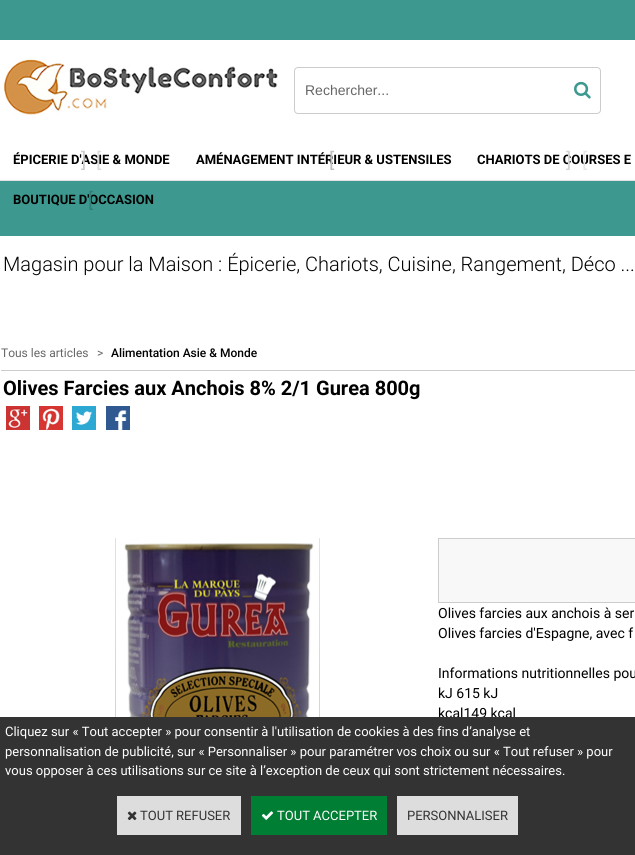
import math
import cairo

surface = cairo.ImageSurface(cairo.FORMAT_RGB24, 635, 855)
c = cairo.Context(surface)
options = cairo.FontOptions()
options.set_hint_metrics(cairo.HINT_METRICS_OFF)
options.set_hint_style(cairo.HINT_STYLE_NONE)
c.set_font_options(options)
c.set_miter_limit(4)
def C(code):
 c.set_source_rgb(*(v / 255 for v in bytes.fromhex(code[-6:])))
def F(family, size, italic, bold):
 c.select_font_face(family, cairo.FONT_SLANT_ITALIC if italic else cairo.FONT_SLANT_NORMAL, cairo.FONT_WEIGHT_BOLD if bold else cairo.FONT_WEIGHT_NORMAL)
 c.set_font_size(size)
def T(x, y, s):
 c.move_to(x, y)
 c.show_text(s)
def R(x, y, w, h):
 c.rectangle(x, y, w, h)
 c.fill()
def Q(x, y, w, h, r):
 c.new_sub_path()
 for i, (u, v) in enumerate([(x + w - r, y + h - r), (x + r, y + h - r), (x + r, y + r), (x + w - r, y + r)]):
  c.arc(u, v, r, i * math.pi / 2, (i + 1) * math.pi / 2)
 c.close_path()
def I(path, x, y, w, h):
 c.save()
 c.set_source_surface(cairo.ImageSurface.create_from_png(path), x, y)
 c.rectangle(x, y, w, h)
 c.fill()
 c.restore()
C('3d998f')
c.paint()
C('ffffff')
R(0,40,635,140)
C('e2e2e2')
R(0,180,635,1)
I('1.png',4,59,274,56)
Q(294.5,67.5,306,46,3.5)
C('cccccc')
c.set_line_width(1)
c.stroke()
F('Liberation Sans',14,0,0)
C('666666')
T(305,95,'Rechercher...')
I('2.png',574,81,17,18)
F('Roboto',13,0,1)
C('000000')
T(13,164,'ÉPICERIE D\'ASIE & MONDE')
F('Roboto',20,0,0)
C('cccccc')
T(81,167,']')
C('dbdbdb')
T(96,167,'[')
F('Roboto',13,0,1)
C('000000')
T(196,164,'AMÉNAGEMENT INTÉRIEUR & USTENSILES')
F('Roboto',20,0,0)
C('bfbfbf')
T(329,167,'[')
F('Roboto',13,0,1)
C('000000')
T(477,164,'CHARIOTS DE COURSES E')
F('Roboto',20,0,0)
C('d5d5d5')
T(566,167,']')
C('e6e6e6')
T(582,167,'[')
F('Roboto',13,0,1)
C('000000')
T(13,204,'BOUTIQUE D\'OCCASION')
F('Roboto',20,0,0)
C('327d75')
T(88,207,'[')
C('ffffff')
R(0,236,635,481)
F('Roboto Light',20,0,0)
C('000000')
T(3,271,'Magasin pour la Maison : Épicerie, Chariots, Cuisine, Rangement, Déco ...')
F('Roboto',12,0,0)
C('666666')
T(1,357,'Tous les articles')
T(97,357,'>')
F('Roboto Medium',12,0,0)
C('000000')
T(111,357,'Alimentation Asie & Monde')
C('cccccc')
R(1,370,634,1)
F('Roboto',20,0,1)
C('000000')
T(3,395,'Olives Farcies aux Anchois 8% 2/1 Gurea 800g')
I('3.png',6,406,24,24)
I('4.png',39,406,24,24)
I('5.png',72,406,24,24)
I('6.png',106,406,24,24)
I('7.png',115,538,205,179)
C('f8f8f8')
c.rectangle(438.5,538.5,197,64)
c.fill_preserve()
C('cccccc')
c.stroke()
F('Roboto',14,0,0)
C('000000')
T(438,618,'Olives farcies aux anchois à ser')
T(438,638,'Olives farcies d\'Espagne, avec f')
T(438,678,'Informations nutritionnelles pou')
T(438,698,'kJ 615 kJ')
T(438,718,'kcal149 kcal')
C('333333')
R(0,717,635,138)
F('Roboto',13,0,0)
C('ffffff')
T(5,736,'Cliquez sur « Tout accepter » pour consentir à l\'utilisation de cookies à des fins d’analyse et')
T(5,756,'personnalisation de publicité, sur « Personnaliser » pour paramétrer vos choix ou sur « Tout refuser » pour')
T(5,775,'vous opposer à ces utilisations sur ce site à l’exception de ceux qui sont strictement nécessaires.')
C('dddddd')
R(117,796,124,39)
I('8.png',127,811,10,10)
C('333333')
T(140,820,'TOUT REFUSER')
C('007e33')
R(251,796,136,39)
I('9.png',261,811,13,9)
C('ffffff')
T(277,820,'TOUT ACCEPTER')
C('dddddd')
R(397,796,121,39)
C('333333')
T(407,820,'PERSONNALISER')
surface.write_to_png('o.png')
